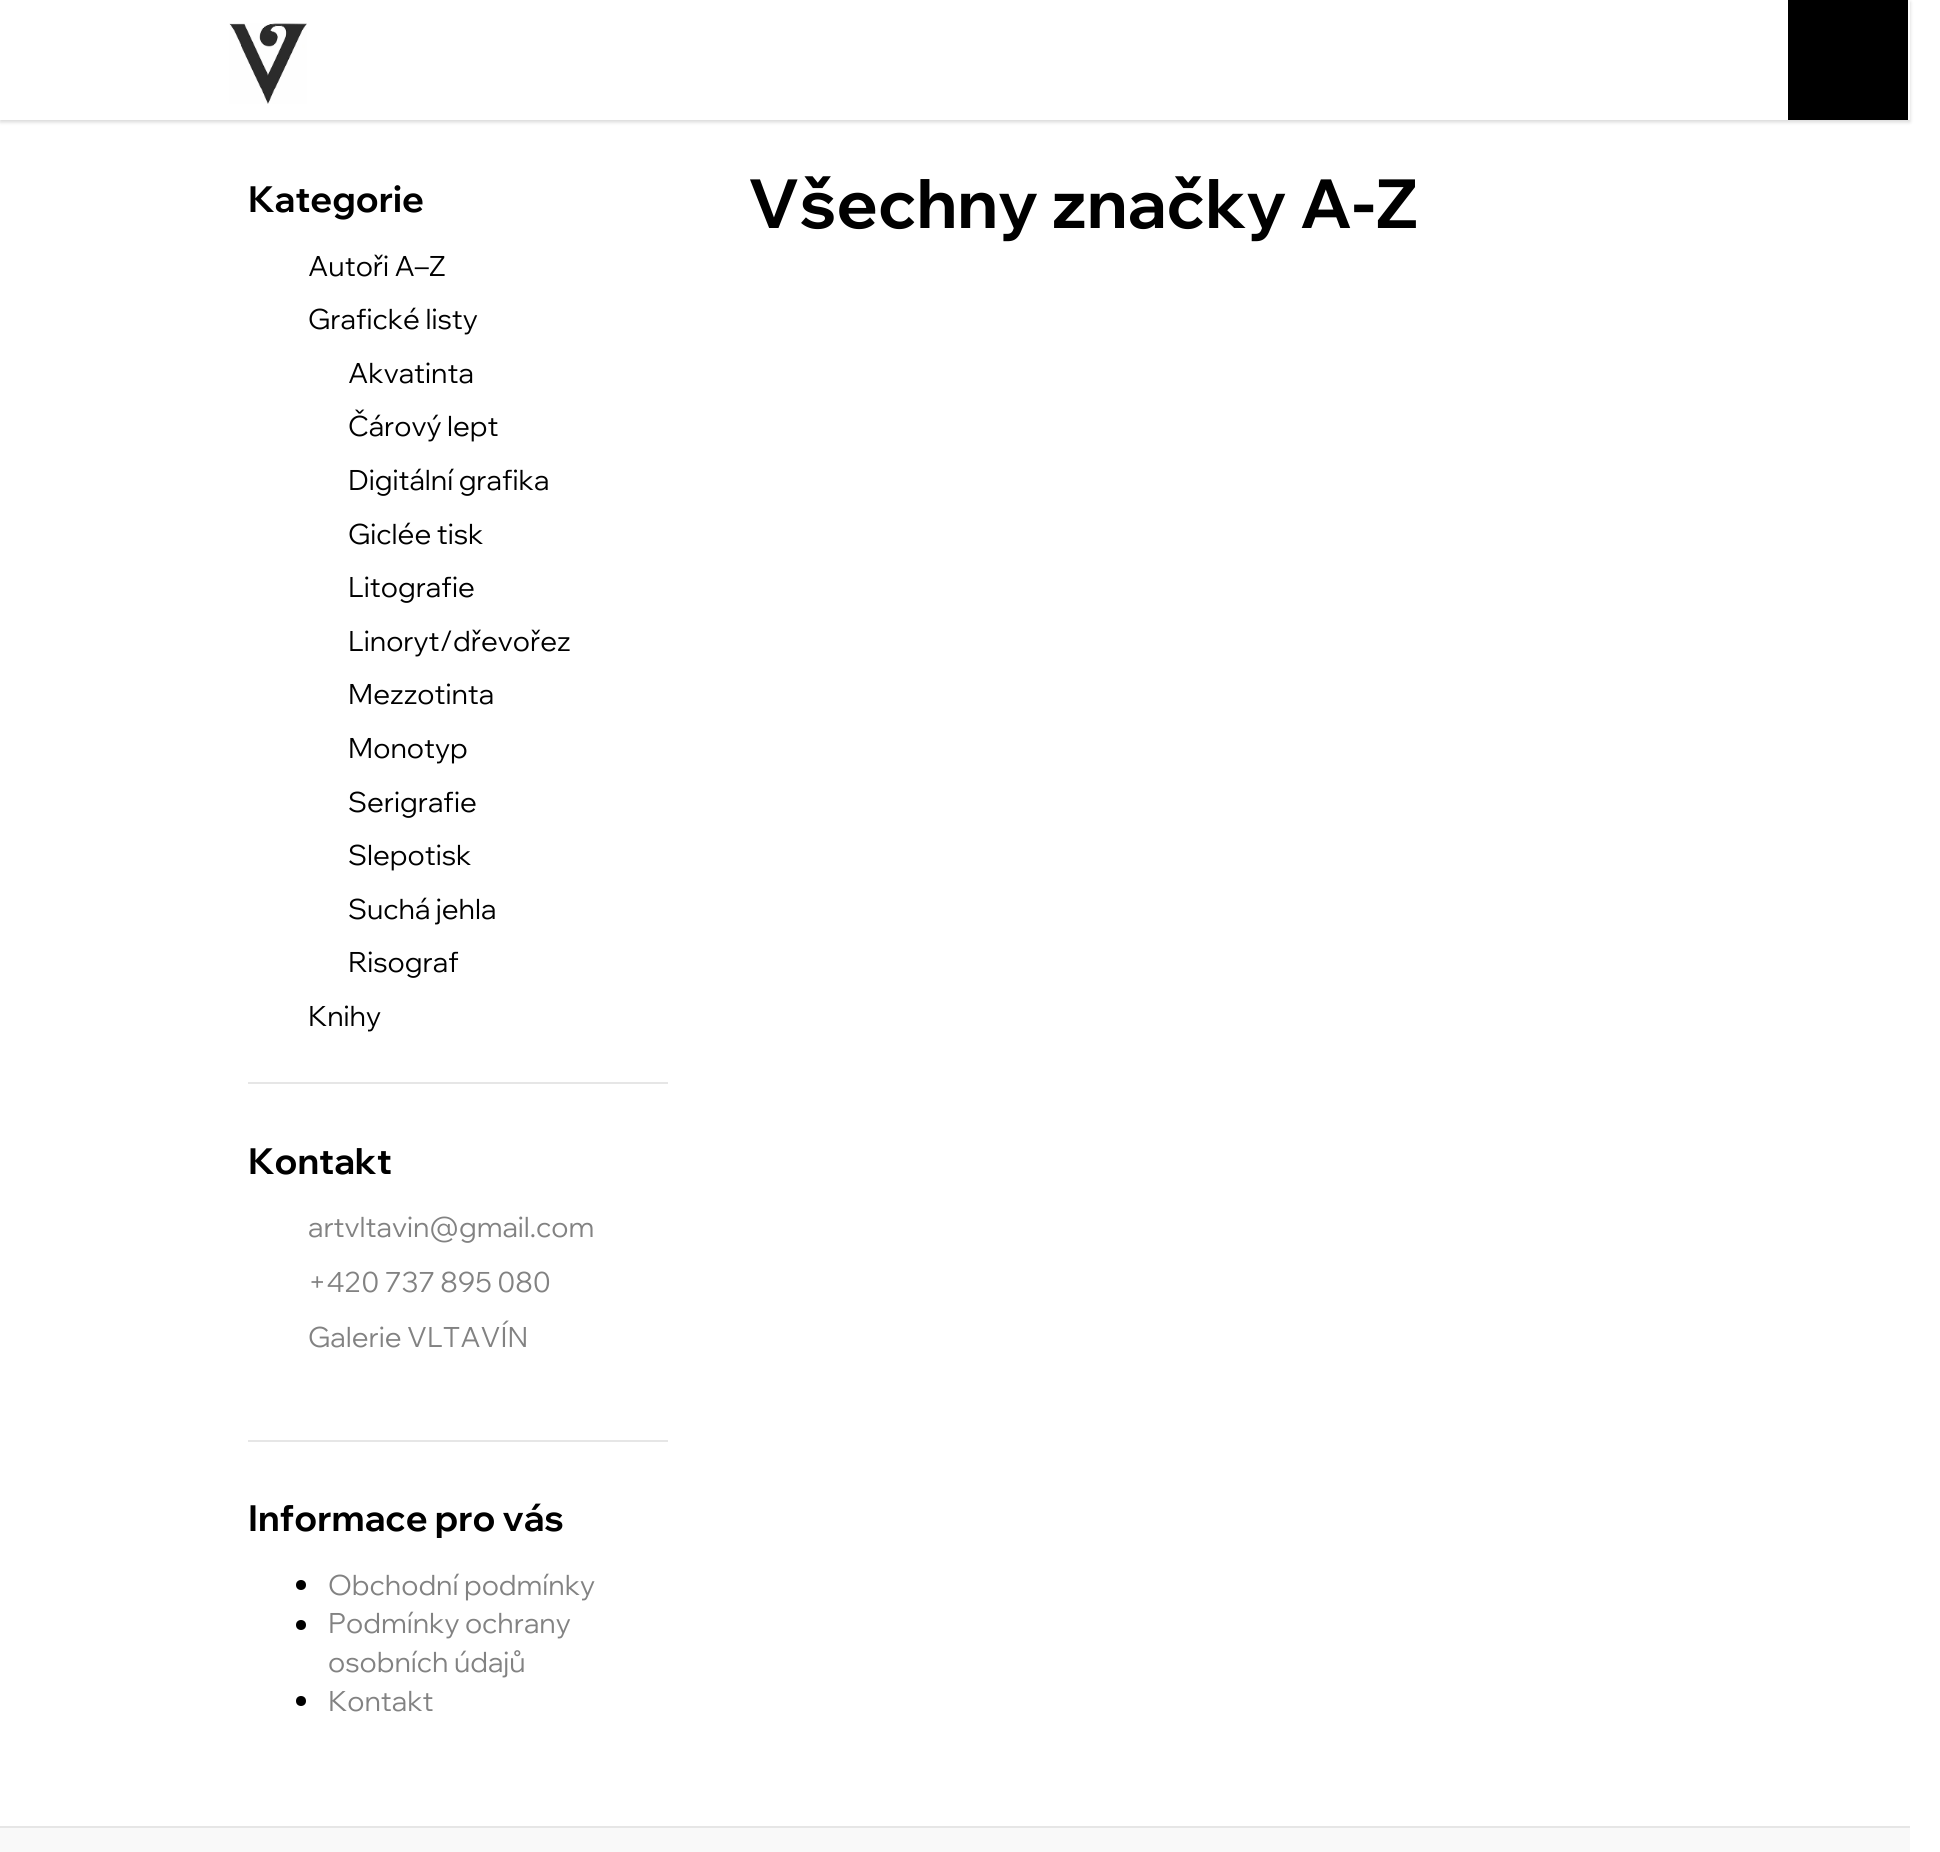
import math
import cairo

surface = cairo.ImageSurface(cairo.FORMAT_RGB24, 1940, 1852)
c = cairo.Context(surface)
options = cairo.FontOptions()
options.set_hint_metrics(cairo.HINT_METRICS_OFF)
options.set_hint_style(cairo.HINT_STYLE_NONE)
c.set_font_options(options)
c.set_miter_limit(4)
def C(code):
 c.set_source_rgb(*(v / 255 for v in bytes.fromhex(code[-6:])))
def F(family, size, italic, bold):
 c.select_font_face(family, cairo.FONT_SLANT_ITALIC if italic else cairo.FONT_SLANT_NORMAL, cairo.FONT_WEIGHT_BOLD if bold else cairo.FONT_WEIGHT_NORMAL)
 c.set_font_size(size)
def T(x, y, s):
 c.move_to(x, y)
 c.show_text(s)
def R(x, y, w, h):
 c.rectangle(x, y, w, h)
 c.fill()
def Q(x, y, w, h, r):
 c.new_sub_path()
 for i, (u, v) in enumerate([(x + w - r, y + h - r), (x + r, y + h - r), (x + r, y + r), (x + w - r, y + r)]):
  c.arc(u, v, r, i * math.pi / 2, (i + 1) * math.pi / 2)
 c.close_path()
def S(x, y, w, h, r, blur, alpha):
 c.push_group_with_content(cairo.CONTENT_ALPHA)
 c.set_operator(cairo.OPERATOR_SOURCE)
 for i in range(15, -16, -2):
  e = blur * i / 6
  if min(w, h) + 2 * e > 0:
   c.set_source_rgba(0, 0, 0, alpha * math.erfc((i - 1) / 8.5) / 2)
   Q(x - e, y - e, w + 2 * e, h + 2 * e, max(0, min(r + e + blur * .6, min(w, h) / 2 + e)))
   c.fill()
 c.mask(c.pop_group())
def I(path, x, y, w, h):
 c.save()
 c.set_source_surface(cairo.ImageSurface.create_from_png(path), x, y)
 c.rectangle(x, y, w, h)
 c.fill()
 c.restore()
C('ffffff')
c.paint()
c.save()
c.set_fill_rule(cairo.FILL_RULE_EVEN_ODD)
c.new_path()
c.move_to(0,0)
c.line_to(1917,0)
c.line_to(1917,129)
c.line_to(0,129)
c.close_path()
c.move_to(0,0)
c.line_to(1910,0)
c.line_to(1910,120)
c.line_to(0,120)
c.close_path()
c.clip()
C('000000')
S(0,2,1910,120,0,2,.16)
c.restore()
I('1.png',229,23,78,81)
C('000000')
R(1788,0,120,120)
F('Wix Madefor Display',36,0,1)
T(248,212,'Kategorie')
F('Wix Madefor Display',28,0,0)
T(308,276,'Autoři A–Z')
T(308,329,'Grafické listy')
T(348,383,'Akvatinta')
T(348,436,'Čárový lept')
T(348,490,'Digitální grafika')
T(348,544,'Giclée tisk')
T(348,597,'Litografie')
T(348,651,'Linoryt/dřevořez')
T(348,704,'Mezzotinta')
T(348,758,'Monotyp')
T(348,812,'Serigrafie')
T(348,865,'Slepotisk')
T(348,919,'Suchá jehla')
T(348,972,'Risograf')
T(308,1026,'Knihy')
C('e6e6e6')
R(248,1082,420,2)
F('Wix Madefor Display',36,0,1)
C('000000')
T(248,1174,'Kontakt')
F('Wix Madefor Display',28,0,0)
C('828282')
T(308,1237,'artvltavin@gmail.com')
T(308,1292,'+420 737 895 080')
T(308,1347,'Galerie VLTAVÍN')
C('e6e6e6')
R(248,1440,420,2)
F('Wix Madefor Display',36,0,1)
C('000000')
T(248,1531,'Informace pro vás')
c.new_path()
c.arc(301,1585,5,0,2 * math.pi)
c.fill()
F('Wix Madefor Display',28,0,0)
C('828282')
T(328,1595,'Obchodní podmínky')
C('000000')
c.new_path()
c.arc(301,1625,5,0,2 * math.pi)
c.fill()
C('828282')
T(328,1633,'Podmínky ochrany')
T(328,1672,'osobních údajů')
C('000000')
c.new_path()
c.arc(301,1701,5,0,2 * math.pi)
c.fill()
C('828282')
T(328,1711,'Kontakt')
F('Wix Madefor Display',68,0,1)
C('000000')
T(748,228,'Všechny značky A-Z')
C('f9f9f9')
R(0,1828,1910,24)
C('e6e6e6')
R(0,1826,1910,2)
surface.write_to_png('o.png')
